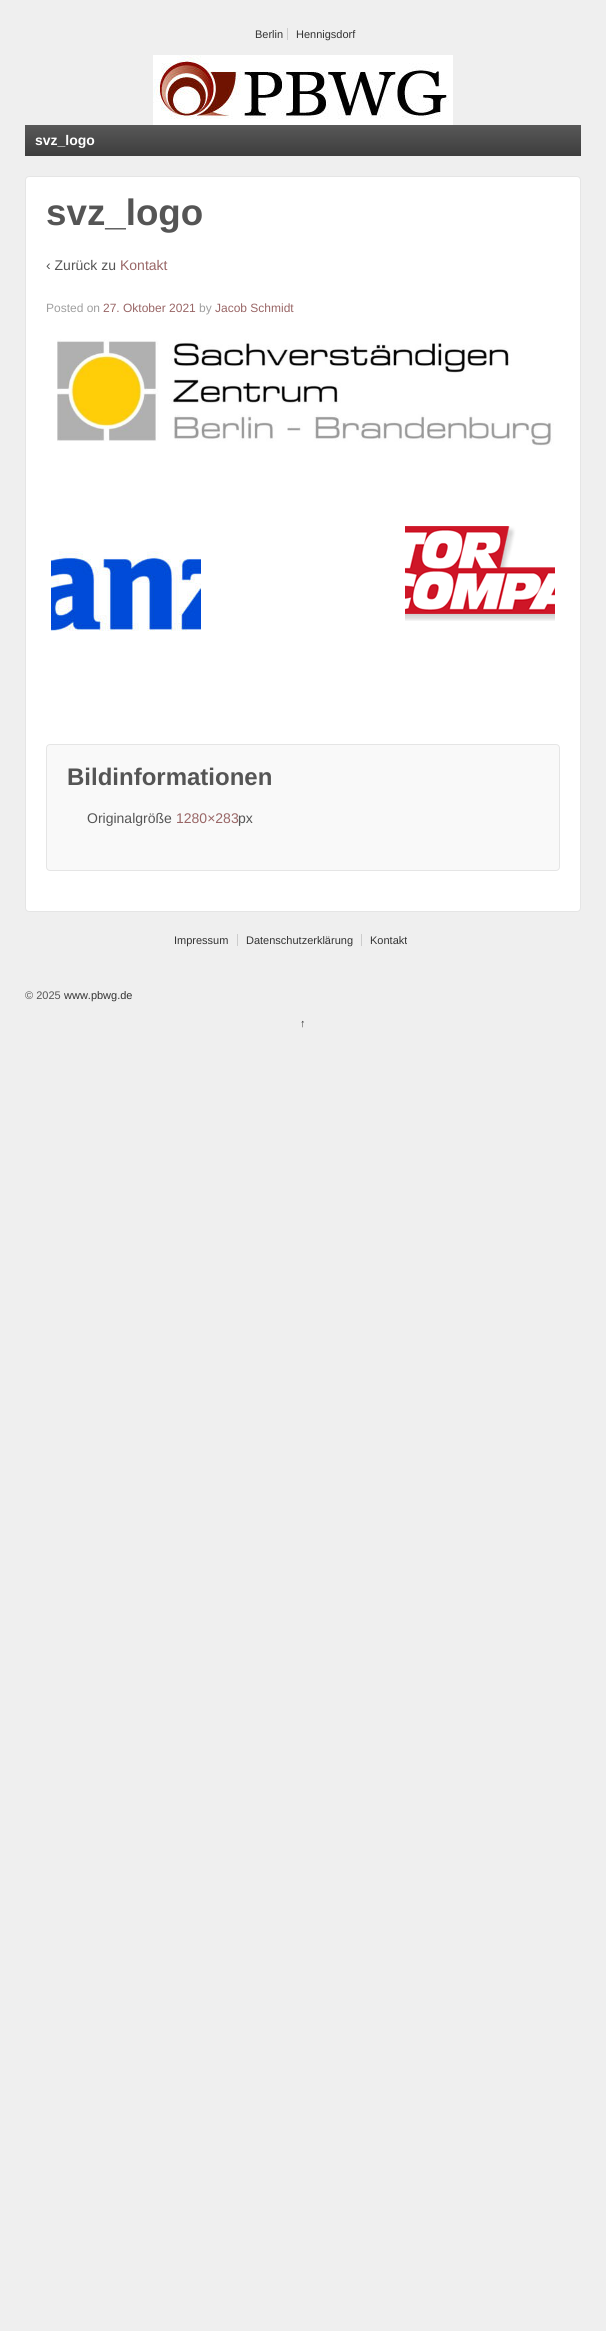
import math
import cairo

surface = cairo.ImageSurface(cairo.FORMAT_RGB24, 606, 2331)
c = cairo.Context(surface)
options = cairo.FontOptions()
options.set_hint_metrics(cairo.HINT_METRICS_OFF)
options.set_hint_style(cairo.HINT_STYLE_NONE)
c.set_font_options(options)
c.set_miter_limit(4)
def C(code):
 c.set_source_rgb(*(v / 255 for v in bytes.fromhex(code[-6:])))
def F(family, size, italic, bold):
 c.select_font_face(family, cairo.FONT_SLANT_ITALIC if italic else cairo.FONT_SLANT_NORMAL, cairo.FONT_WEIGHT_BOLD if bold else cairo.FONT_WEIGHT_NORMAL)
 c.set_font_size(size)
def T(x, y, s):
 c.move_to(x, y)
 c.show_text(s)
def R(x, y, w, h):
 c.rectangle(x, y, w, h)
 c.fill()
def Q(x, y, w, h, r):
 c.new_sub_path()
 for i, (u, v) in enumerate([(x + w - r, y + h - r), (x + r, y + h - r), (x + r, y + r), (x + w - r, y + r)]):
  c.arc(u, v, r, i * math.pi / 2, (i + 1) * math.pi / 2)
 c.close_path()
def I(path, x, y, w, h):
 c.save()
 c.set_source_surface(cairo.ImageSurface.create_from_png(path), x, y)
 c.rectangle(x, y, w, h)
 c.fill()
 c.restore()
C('efefef')
c.paint()
F('Liberation Sans',11,0,0)
C('333333')
T(255,38,'Berlin')
T(296,38,'Hennigsdorf')
C('cccccc')
R(287,28,1,12)
I('1.png',153,55,300,70)
gradient = cairo.LinearGradient(303,125,303,156)
gradient.add_color_stop_rgba(0,0.345,0.345,0.345,1)
gradient.add_color_stop_rgba(1,0.239,0.239,0.239,1)
c.set_source(gradient)
R(25,125,556,31)
F('Liberation Sans',14,0,1)
C('ffffff')
T(35,145,'svz_logo')
Q(25.5,176.5,555,735,3.5)
c.fill_preserve()
C('e5e5e5')
c.set_line_width(1)
c.stroke()
F('Liberation Sans',36.75,0,1)
C('555555')
T(46,225,'svz_logo')
F('Liberation Sans',14,0,0)
T(46,270,'‹ Zurück zu')
C('996666')
T(120,270,'Kontakt')
F('Liberation Sans',12,0,0)
C('9f9f9f')
T(46,312,'Posted on')
C('996666')
T(103,312,'27. Oktober 2021')
C('9f9f9f')
T(199,312,'by')
C('996666')
T(215,312,'Jacob Schmidt')
I('2.png',57,339,497,107)
I('3.png',51,551,150,80)
I('4.png',405,526,150,95)
C('f9f9f9')
Q(46.5,744.5,513,126,3.5)
c.fill_preserve()
C('e5e5e5')
c.stroke()
F('Liberation Sans',24,0,1)
C('555555')
T(67,785,'Bildinformationen')
F('Liberation Sans',14,0,0)
T(87,823,'Originalgröße')
C('996666')
T(176,823,'1280×283')
C('555555')
T(238,823,'px')
F('Liberation Sans',11,0,0)
C('333333')
T(174,944,'Impressum')
T(246,944,'Datenschutzerklärung')
C('cccccc')
R(237,934,1,12)
C('333333')
T(370,944,'Kontakt')
C('cccccc')
R(361,934,1,12)
C('555555')
T(25,999,'© 2025')
C('333333')
T(64,999,'www.pbwg.de')
T(300,1027,'↑')
surface.write_to_png('o.png')
